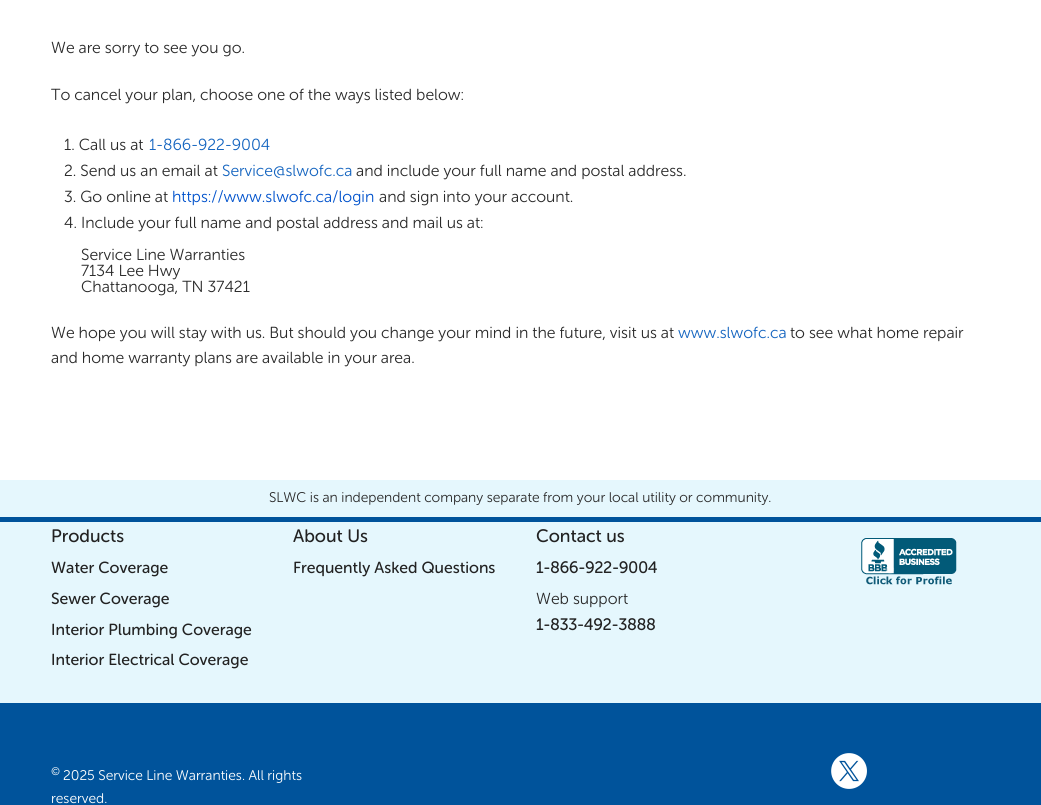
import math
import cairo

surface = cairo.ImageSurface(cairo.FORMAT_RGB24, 1041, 805)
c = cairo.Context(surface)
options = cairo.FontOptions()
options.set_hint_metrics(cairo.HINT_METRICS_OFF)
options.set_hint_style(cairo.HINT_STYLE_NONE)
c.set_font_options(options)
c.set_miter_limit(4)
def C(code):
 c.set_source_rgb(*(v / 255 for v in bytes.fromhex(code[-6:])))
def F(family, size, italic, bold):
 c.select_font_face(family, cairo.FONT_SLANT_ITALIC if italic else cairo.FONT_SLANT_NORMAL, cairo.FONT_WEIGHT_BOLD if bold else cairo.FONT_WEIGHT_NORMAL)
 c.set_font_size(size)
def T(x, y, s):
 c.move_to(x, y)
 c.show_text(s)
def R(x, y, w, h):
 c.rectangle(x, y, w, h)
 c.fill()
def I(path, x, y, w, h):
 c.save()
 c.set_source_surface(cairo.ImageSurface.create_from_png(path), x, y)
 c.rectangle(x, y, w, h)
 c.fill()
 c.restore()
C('ffffff')
c.paint()
F('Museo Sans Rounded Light',16,0,0)
C('2a2a2a')
T(51,53,'We are sorry to see you go.')
T(51,100,'To cancel your plan, choose one of the ways listed below:')
T(64,150,'1. Call us at')
C('1565c0')
T(149,150,'1-866-922-9004')
C('2a2a2a')
T(64,176,'2. Send us an email at')
C('1565c0')
T(222,176,'Service@slwofc.ca')
C('2a2a2a')
T(356,176,'and include your full name and postal address.')
T(64,202,'3. Go online at')
C('0052cc')
T(172,202,'https://www.slwofc.ca/login')
C('2a2a2a')
T(379,202,'and sign into your account.')
T(64,228,'4. Include your full name and postal address and mail us at:')
T(81,260,'Service Line Warranties')
T(81,276,'7134 Lee Hwy')
T(81,292,'Chattanooga, TN 37421')
T(51,338,'We hope you will stay with us. But should you change your mind in the future, visit us at')
C('1565c0')
T(678,338,'www.slwofc.ca')
C('2a2a2a')
T(790,338,'to see what home repair')
T(51,363,'and home warranty plans are available in your area.')
C('e5f7fd')
R(0,480,1041,37)
C('00539b')
R(0,517,1041,5)
F('Museo Sans Rounded Light',14,0,0)
C('2a2a2a')
T(269,502,'SLWC is an independent company separate from your local utility or community.')
C('e5f7fd')
R(0,522,1041,181)
F('Museo Sans Rounded',18,0,0)
C('222222')
T(51,542,'Products')
F('Museo Sans Rounded',16,0,0)
T(51,573,'Water Coverage')
T(51,604,'Sewer Coverage')
T(51,635,'Interior Plumbing Coverage')
T(51,665,'Interior Electrical Coverage')
F('Museo Sans Rounded',18,0,0)
T(293,542,'About Us')
F('Museo Sans Rounded',16,0,0)
T(293,573,'Frequently Asked Questions')
F('Museo Sans Rounded',18,0,0)
T(536,542,'Contact us')
F('Museo Sans Rounded',16,0,1)
T(536,573,'1-866-922-9004')
F('Museo Sans Rounded Light',16,0,0)
C('2a2a2a')
T(536,604,'Web support')
F('Museo Sans Rounded',16,0,1)
C('222222')
T(536,630,'1-833-492-3888')
I('1.png',861,538,96,47)
C('00539b')
R(0,703,1041,102)
F('Museo Sans Rounded Light',11,0,0)
C('ffffff')
T(51,775,'©')
F('Museo Sans Rounded Light',14,0,0)
T(63,780,'2025 Service Line Warranties. All rights')
T(51,803,'reserved.')
I('2.png',831,753,36,36)
surface.write_to_png('o.png')
